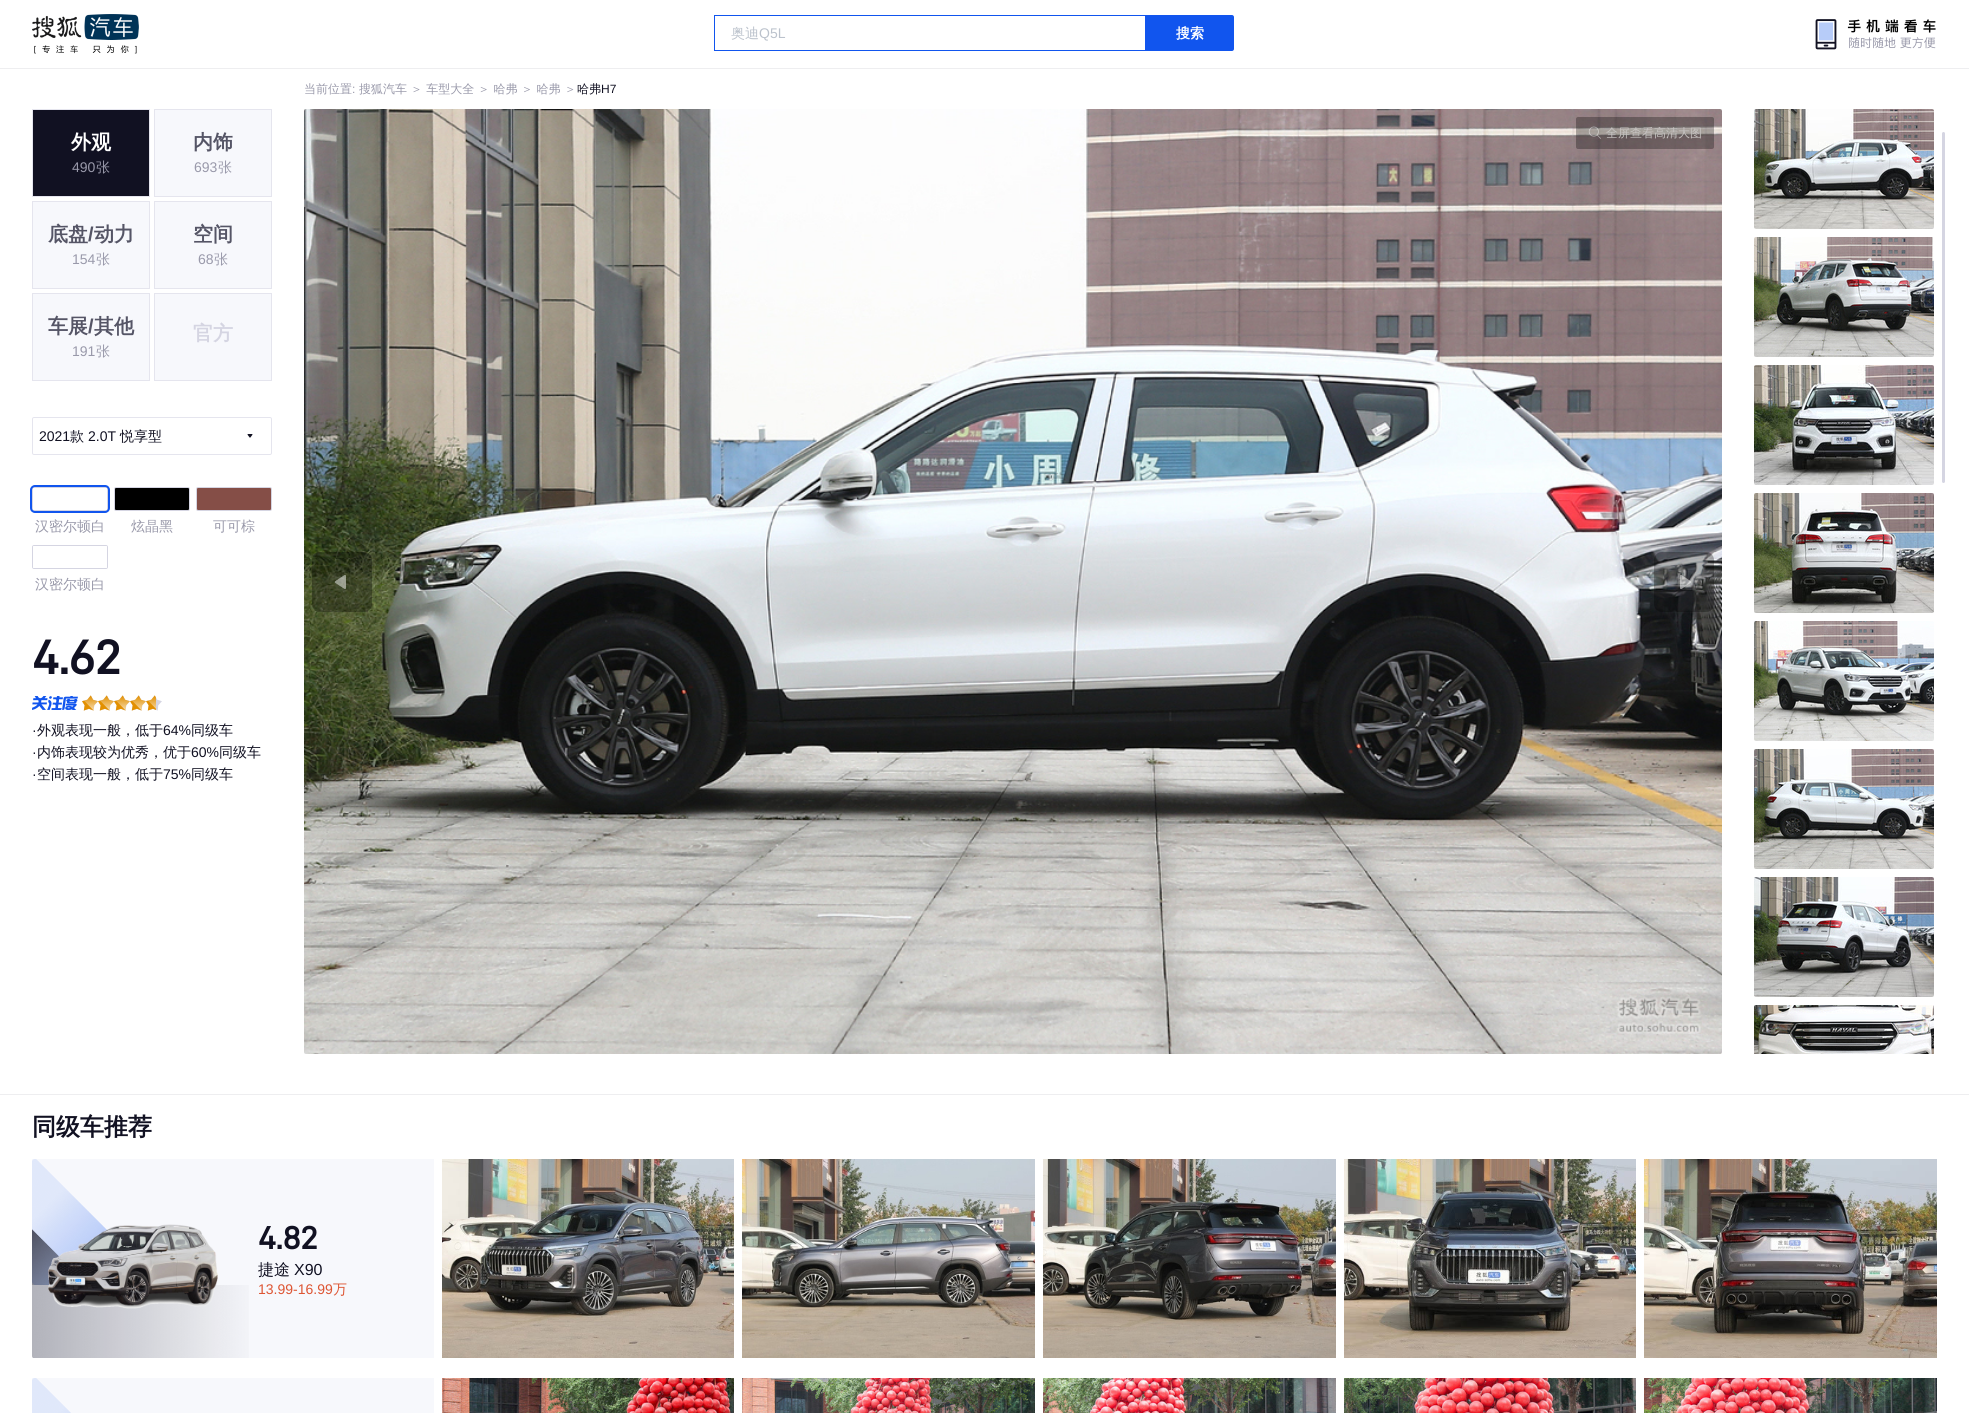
import math
import cairo

surface = cairo.ImageSurface(cairo.FORMAT_RGB24, 1969, 1413)
c = cairo.Context(surface)
options = cairo.FontOptions()
options.set_hint_metrics(cairo.HINT_METRICS_OFF)
options.set_hint_style(cairo.HINT_STYLE_NONE)
c.set_font_options(options)
c.set_miter_limit(4)
def C(code):
 c.set_source_rgb(*(v / 255 for v in bytes.fromhex(code[-6:])))
def F(family, size, italic, bold):
 c.select_font_face(family, cairo.FONT_SLANT_ITALIC if italic else cairo.FONT_SLANT_NORMAL, cairo.FONT_WEIGHT_BOLD if bold else cairo.FONT_WEIGHT_NORMAL)
 c.set_font_size(size)
def T(x, y, s):
 c.move_to(x, y)
 c.show_text(s)
def R(x, y, w, h):
 c.rectangle(x, y, w, h)
 c.fill()
def Q(x, y, w, h, r):
 c.new_sub_path()
 for i, (u, v) in enumerate([(x + w - r, y + h - r), (x + r, y + h - r), (x + r, y + r), (x + w - r, y + r)]):
  c.arc(u, v, r, i * math.pi / 2, (i + 1) * math.pi / 2)
 c.close_path()
def I(path, x, y, w, h):
 c.save()
 c.set_source_surface(cairo.ImageSurface.create_from_png(path), x, y)
 c.rectangle(x, y, w, h)
 c.fill()
 c.restore()
C('ffffff')
c.paint()
C('eeeef0')
R(0,68,1969,1)
I('1.png',32,14,107,40)
c.rectangle(714.5,15.5,431,35)
C('1155ee')
c.set_line_width(1)
c.stroke()
F('WenQuanYi Zen Hei Medium',14,0,0)
C('bbc2cc')
T(731,38,'奥迪')
F('Liberation Sans',14,0,0)
T(759,38,'Q5L')
C('1155ee')
c.new_path()
c.move_to(1146,15)
c.line_to(1232,15)
c.curve_to(1233,15,1234,16,1234,17)
c.line_to(1234,49)
c.curve_to(1234,50,1233,51,1232,51)
c.line_to(1146,51)
c.close_path()
c.fill()
F('WenQuanYi Zen Hei',14,0,1)
C('ffffff')
T(1176,38,'搜索')
I('2.png',1815,19,121,31)
F('WenQuanYi Zen Hei Medium',12,0,0)
C('9999aa')
T(304,93,'当前位置')
F('Liberation Sans',12,0,0)
T(352,93,':')
F('WenQuanYi Zen Hei Medium',12,0,0)
T(359,93,'搜狐汽车 ＞ 车型大全 ＞ 哈弗 ＞ 哈弗 ＞')
C('111122')
T(577,93,'哈弗')
F('Liberation Sans',12,0,0)
T(601,93,'H7')
c.rectangle(32.5,109.5,117,87)
c.fill_preserve()
C('e5e5ee')
c.stroke()
F('WenQuanYi Zen Hei',20,0,1)
C('ffffff')
T(71,149,'外观')
F('Liberation Sans',14,0,0)
C('9999aa')
T(72,172,'490')
F('WenQuanYi Zen Hei Medium',14,0,0)
T(96,172,'张')
C('f7f8fc')
c.rectangle(154.5,109.5,117,87)
c.fill_preserve()
C('e5e5ee')
c.stroke()
F('WenQuanYi Zen Hei',20,0,1)
C('555566')
T(193,149,'内饰')
F('Liberation Sans',14,0,0)
C('9999aa')
T(194,172,'693')
F('WenQuanYi Zen Hei Medium',14,0,0)
T(218,172,'张')
C('f7f8fc')
c.rectangle(32.5,201.5,117,87)
c.fill_preserve()
C('e5e5ee')
c.stroke()
F('WenQuanYi Zen Hei',20,0,1)
C('555566')
T(48,241,'底盘')
F('Liberation Sans',20,0,1)
T(88,241,'/')
F('WenQuanYi Zen Hei',20,0,1)
T(94,241,'动力')
F('Liberation Sans',14,0,0)
C('9999aa')
T(72,264,'154')
F('WenQuanYi Zen Hei Medium',14,0,0)
T(96,264,'张')
C('f7f8fc')
c.rectangle(154.5,201.5,117,87)
c.fill_preserve()
C('e5e5ee')
c.stroke()
F('WenQuanYi Zen Hei',20,0,1)
C('555566')
T(193,241,'空间')
F('Liberation Sans',14,0,0)
C('9999aa')
T(198,264,'68')
F('WenQuanYi Zen Hei Medium',14,0,0)
T(214,264,'张')
C('f7f8fc')
c.rectangle(32.5,293.5,117,87)
c.fill_preserve()
C('e5e5ee')
c.stroke()
F('WenQuanYi Zen Hei',20,0,1)
C('555566')
T(48,333,'车展')
F('Liberation Sans',20,0,1)
T(88,333,'/')
F('WenQuanYi Zen Hei',20,0,1)
T(94,333,'其他')
F('Liberation Sans',14,0,0)
C('9999aa')
T(72,356,'191')
F('WenQuanYi Zen Hei Medium',14,0,0)
T(96,356,'张')
C('f7f8fc')
c.rectangle(154.5,293.5,117,87)
c.fill_preserve()
C('e5e5ee')
c.stroke()
F('WenQuanYi Zen Hei',20,0,1)
C('d5d5e2')
T(193,340,'官方')
Q(32.5,417.5,239,37,1.5)
C('e5e5ee')
c.stroke()
F('Liberation Sans',14,0,0)
C('111122')
T(39,441,'2021')
F('WenQuanYi Zen Hei Medium',14,0,0)
T(70,441,'款')
F('Liberation Sans',14,0,0)
T(88,441,'2.0T')
F('WenQuanYi Zen Hei Medium',14,0,0)
T(120,441,'悦享型')
I('3.png',247,434,6,4)
Q(32.5,487.5,75,23,1.5)
C('d5d5e2')
c.stroke()
C('ffffff')
Q(33,488,74,22,1)
c.fill()
Q(31,486,78,26,4)
C('1155ee')
c.set_line_width(2)
c.stroke()
C('9999aa')
T(35,531,'汉密尔顿白')
Q(114.5,487.5,75,23,1.5)
C('d5d5e2')
c.set_line_width(1)
c.stroke()
C('000000')
Q(115,488,74,22,1)
c.fill()
C('9999aa')
T(131,531,'炫晶黑')
Q(196.5,487.5,75,23,1.5)
C('d5d5e2')
c.stroke()
C('854e47')
Q(197,488,74,22,1)
c.fill()
C('9999aa')
T(213,531,'可可棕')
Q(32.5,545.5,75,23,1.5)
C('d5d5e2')
c.stroke()
C('ffffff')
Q(33,546,74,22,1)
c.fill()
C('9999aa')
T(35,589,'汉密尔顿白')
F('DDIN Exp',48,0,1)
C('111122')
T(32,674,'4.62')
I('4.png',32,696,46,14)
I('5.png',82,695,16,16)
I('6.png',82,695,16,16)
I('5.png',98,695,16,16)
I('6.png',98,695,16,16)
I('5.png',114,695,16,16)
I('6.png',114,695,16,16)
I('5.png',130,695,16,16)
I('6.png',130,695,16,16)
I('5.png',146,695,16,16)
I('7.png',146,695,10,16)
F('Liberation Sans',14,0,0)
T(32,735,'·')
F('WenQuanYi Zen Hei Medium',14,0,0)
T(37,735,'外观表现一般，低于')
F('Liberation Sans',14,0,0)
T(163,735,'64%')
F('WenQuanYi Zen Hei Medium',14,0,0)
T(191,735,'同级车')
F('Liberation Sans',14,0,0)
T(32,757,'·')
F('WenQuanYi Zen Hei Medium',14,0,0)
T(37,757,'内饰表现较为优秀，优于')
F('Liberation Sans',14,0,0)
T(191,757,'60%')
F('WenQuanYi Zen Hei Medium',14,0,0)
T(219,757,'同级车')
F('Liberation Sans',14,0,0)
T(32,779,'·')
F('WenQuanYi Zen Hei Medium',14,0,0)
T(37,779,'空间表现一般，低于')
F('Liberation Sans',14,0,0)
T(163,779,'75%')
F('WenQuanYi Zen Hei Medium',14,0,0)
T(191,779,'同级车')
I('8.png',304,109,1418,945)
c.set_source_rgba(0,0,0,0.3)
Q(1576,117,138,32,2)
c.fill()
I('9.png',1588,126,13,13)
F('WenQuanYi Zen Hei Medium',12,0,0)
C('c6c3c1')
T(1606,137,'全屏查看高清大图')
c.set_source_rgba(0,0,0,0.3)
Q(312,552,60,60,8)
c.fill()
I('10.png',334,574,12,16)
Q(1654,552,60,60,8)
c.fill()
I('11.png',1680,574,11,16)
I('12.png',1754,109,180,120)
I('13.png',1754,237,180,120)
I('14.png',1754,365,180,120)
I('15.png',1754,493,180,120)
I('16.png',1754,621,180,120)
I('17.png',1754,749,180,120)
I('18.png',1754,877,180,120)
I('19.png',1754,1005,180,49)
C('d5d5e2')
Q(1942,132,3,351,1.5)
c.fill()
C('eeeef0')
R(0,1094,1969,1)
F('WenQuanYi Zen Hei',24,0,1)
C('111122')
T(32,1135,'同级车推荐')
C('f7f8fc')
R(32,1159,402,199)
I('20.png',32,1159,217,199)
I('21.png',48,1224,170,85)
F('DDIN Exp',32,0,1)
C('111122')
T(258,1249,'4.82')
F('WenQuanYi Zen Hei Medium',16,0,0)
T(258,1275,'捷途')
F('Liberation Sans',16,0,0)
T(294,1275,'X90')
F('Liberation Sans',14,0,0)
C('dd5533')
T(258,1294,'13.99-16.99')
F('WenQuanYi Zen Hei Medium',14,0,0)
T(333,1294,'万')
I('22.png',442,1159,292,199)
I('23.png',742,1159,293,199)
I('24.png',1043,1159,293,199)
I('25.png',1344,1159,292,199)
I('26.png',1644,1159,293,199)
C('f7f8fc')
R(32,1378,402,35)
I('27.png',32,1378,39,35)
I('28.png',442,1378,292,35)
I('29.png',742,1378,293,35)
I('30.png',1043,1378,293,35)
I('31.png',1344,1378,292,35)
I('32.png',1644,1378,293,35)
surface.write_to_png('o.png')
